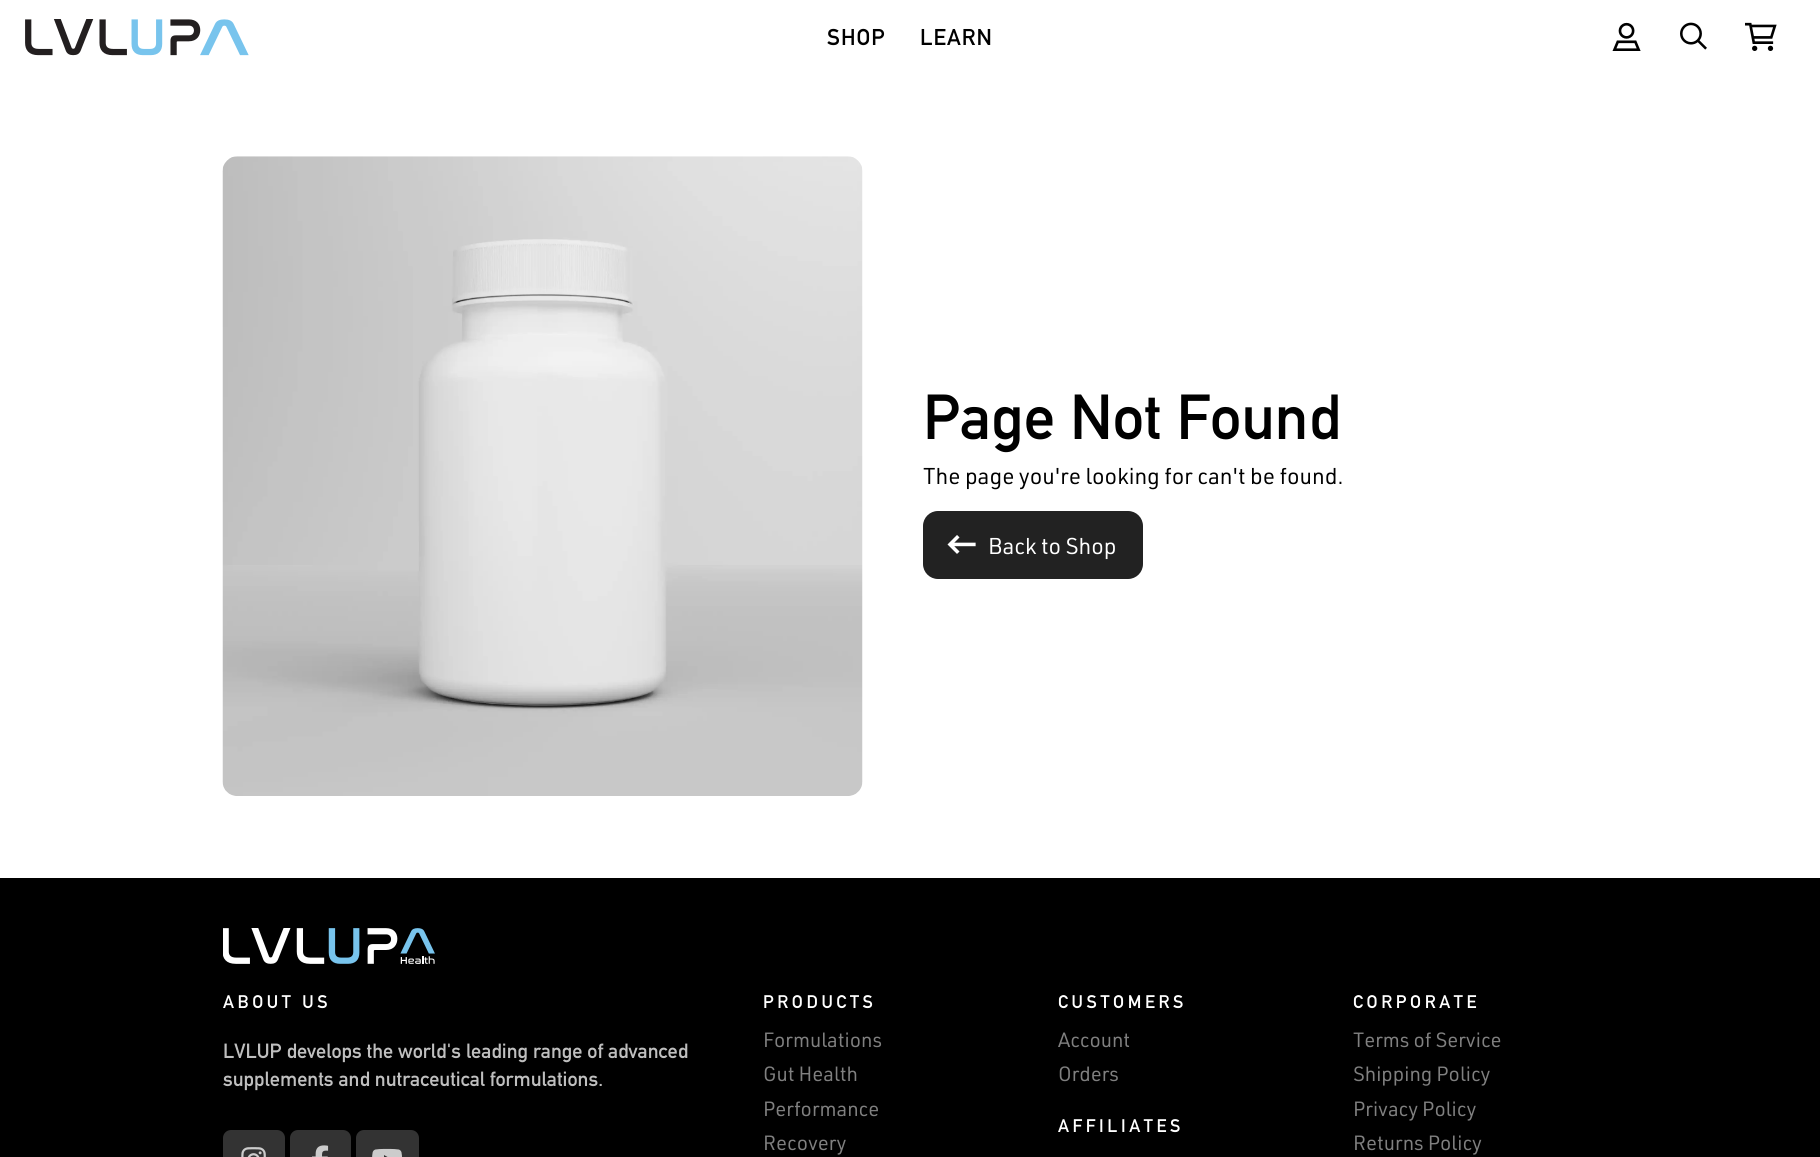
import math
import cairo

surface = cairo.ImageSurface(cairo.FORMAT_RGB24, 1820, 1157)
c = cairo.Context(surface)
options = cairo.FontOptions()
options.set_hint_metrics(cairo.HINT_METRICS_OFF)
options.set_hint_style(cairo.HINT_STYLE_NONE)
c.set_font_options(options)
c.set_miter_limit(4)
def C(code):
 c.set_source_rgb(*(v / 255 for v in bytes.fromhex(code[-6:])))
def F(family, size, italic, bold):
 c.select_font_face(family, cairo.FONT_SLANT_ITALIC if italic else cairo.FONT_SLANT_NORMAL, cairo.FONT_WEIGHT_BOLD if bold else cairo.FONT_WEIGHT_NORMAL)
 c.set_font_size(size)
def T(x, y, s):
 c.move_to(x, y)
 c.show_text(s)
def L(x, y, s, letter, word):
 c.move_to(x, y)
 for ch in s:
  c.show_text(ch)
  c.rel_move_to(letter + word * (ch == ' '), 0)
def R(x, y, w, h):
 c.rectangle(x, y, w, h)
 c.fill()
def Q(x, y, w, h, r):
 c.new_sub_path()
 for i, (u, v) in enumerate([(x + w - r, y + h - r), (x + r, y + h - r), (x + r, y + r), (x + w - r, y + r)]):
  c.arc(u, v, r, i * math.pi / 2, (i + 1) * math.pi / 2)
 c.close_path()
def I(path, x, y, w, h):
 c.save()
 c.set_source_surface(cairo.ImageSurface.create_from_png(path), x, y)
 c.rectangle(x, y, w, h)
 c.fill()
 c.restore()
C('ffffff')
c.paint()
I('1.png',25,19,224,37)
F('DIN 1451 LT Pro',22.5,0,0)
C('000000')
L(827,45,'SHOP',1,0)
L(920,45,'LEARN',1,0)
I('2.png',1612,22,29,29)
I('3.png',1680,22,27,28)
I('4.png',1745,22,32,29)
I('5.png',222,156,641,640)
F('DIN 1451 LT Pro',62.5,0,0)
T(923,439,'Page Not Found')
F('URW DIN',22.5,0,0)
T(923,484,'The page you\'re looking for can\'t be found.')
C('222222')
Q(923,511,220,68,15)
c.fill()
I('6.png',947,535,29,19)
C('ffffff')
T(988,554,'Back to Shop')
C('000000')
R(0,878,1820,279)
I('7.png',223,928,212,36)
F('DIN 1451 LT Pro',18,0,0)
C('ffffff')
L(223,1008,'ABOUT US',3.6,0)
F('DIN 1451 LT Pro',20.25,0,0)
C('bfbfbf')
T(223,1058,'LVLUP develops the world\'s leading range of advanced')
T(223,1086,'supplements and nutraceutical formulations.')
C('333333')
Q(223,1130,62,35,8)
c.fill()
I('8.png',241,1147,25,10)
Q(290,1130,61,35,8)
c.fill()
I('9.png',312,1145,17,12)
Q(356,1130,63,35,8)
c.fill()
I('10.png',372,1148,30,9)
F('DIN 1451 LT Pro',18,0,0)
C('ffffff')
L(763,1008,'PRODUCTS',3.6,0)
F('URW DIN',20.25,0,0)
C('808080')
T(763,1047,'Formulations')
T(763,1081,'Gut Health')
T(763,1116,'Performance')
T(763,1150,'Recovery')
F('DIN 1451 LT Pro',18,0,0)
C('ffffff')
L(1058,1008,'CUSTOMERS',3.6,0)
F('URW DIN',20.25,0,0)
C('808080')
T(1058,1047,'Account')
T(1058,1081,'Orders')
F('DIN 1451 LT Pro',18,0,0)
C('ffffff')
L(1058,1132,'AFFILIATES',3.6,0)
L(1353,1008,'CORPORATE',3.6,0)
F('URW DIN',20.25,0,0)
C('808080')
T(1353,1047,'Terms of Service')
T(1353,1081,'Shipping Policy')
T(1353,1116,'Privacy Policy')
T(1353,1150,'Returns Policy')
surface.write_to_png('o.png')
